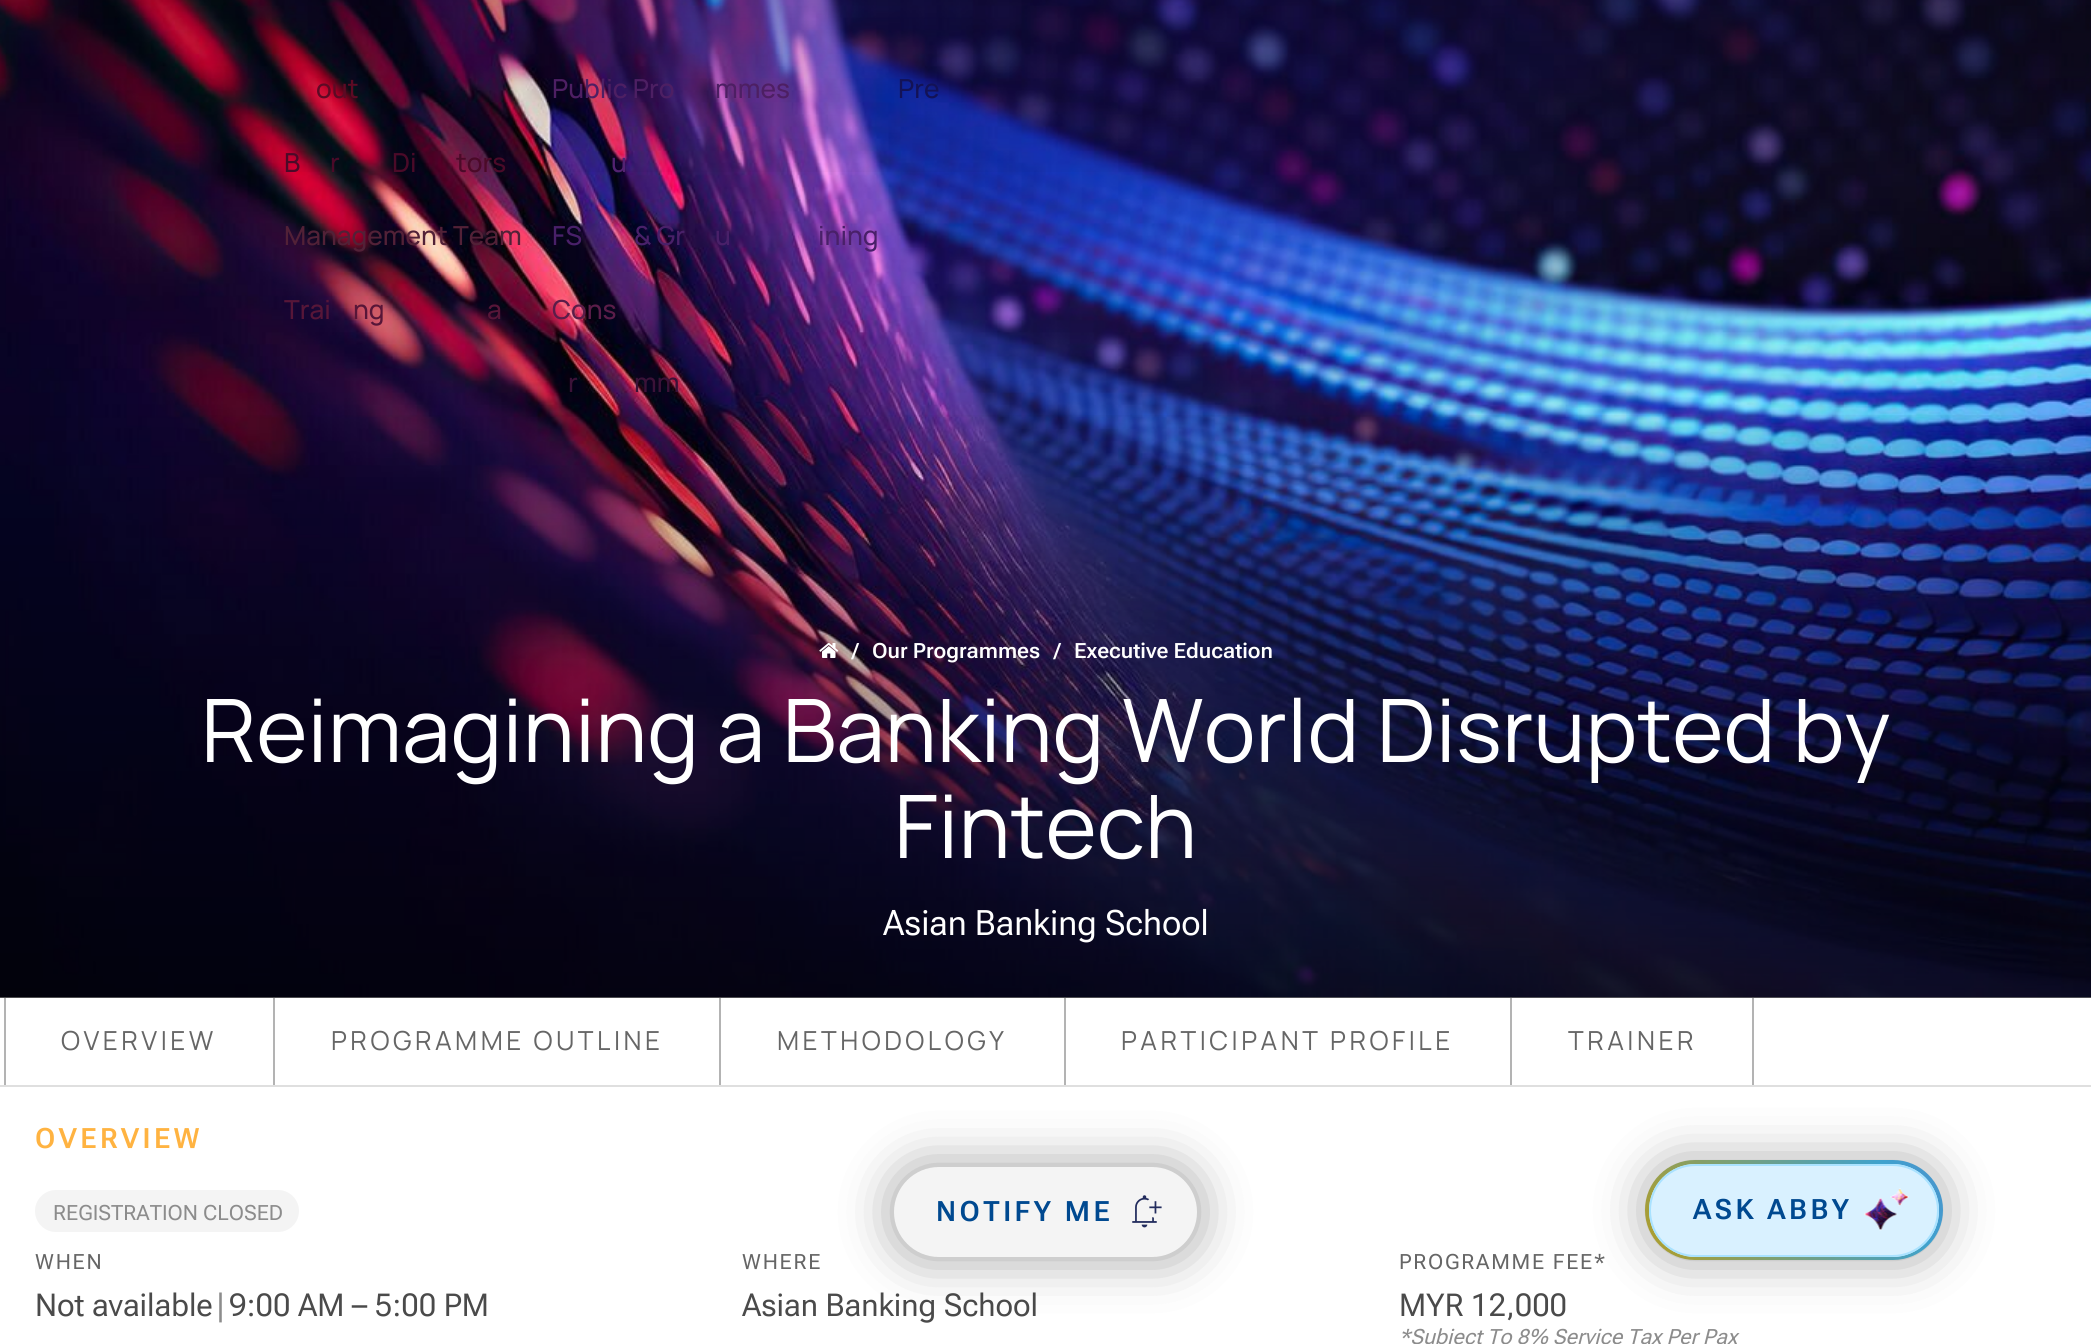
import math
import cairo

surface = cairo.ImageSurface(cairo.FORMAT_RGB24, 2091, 1344)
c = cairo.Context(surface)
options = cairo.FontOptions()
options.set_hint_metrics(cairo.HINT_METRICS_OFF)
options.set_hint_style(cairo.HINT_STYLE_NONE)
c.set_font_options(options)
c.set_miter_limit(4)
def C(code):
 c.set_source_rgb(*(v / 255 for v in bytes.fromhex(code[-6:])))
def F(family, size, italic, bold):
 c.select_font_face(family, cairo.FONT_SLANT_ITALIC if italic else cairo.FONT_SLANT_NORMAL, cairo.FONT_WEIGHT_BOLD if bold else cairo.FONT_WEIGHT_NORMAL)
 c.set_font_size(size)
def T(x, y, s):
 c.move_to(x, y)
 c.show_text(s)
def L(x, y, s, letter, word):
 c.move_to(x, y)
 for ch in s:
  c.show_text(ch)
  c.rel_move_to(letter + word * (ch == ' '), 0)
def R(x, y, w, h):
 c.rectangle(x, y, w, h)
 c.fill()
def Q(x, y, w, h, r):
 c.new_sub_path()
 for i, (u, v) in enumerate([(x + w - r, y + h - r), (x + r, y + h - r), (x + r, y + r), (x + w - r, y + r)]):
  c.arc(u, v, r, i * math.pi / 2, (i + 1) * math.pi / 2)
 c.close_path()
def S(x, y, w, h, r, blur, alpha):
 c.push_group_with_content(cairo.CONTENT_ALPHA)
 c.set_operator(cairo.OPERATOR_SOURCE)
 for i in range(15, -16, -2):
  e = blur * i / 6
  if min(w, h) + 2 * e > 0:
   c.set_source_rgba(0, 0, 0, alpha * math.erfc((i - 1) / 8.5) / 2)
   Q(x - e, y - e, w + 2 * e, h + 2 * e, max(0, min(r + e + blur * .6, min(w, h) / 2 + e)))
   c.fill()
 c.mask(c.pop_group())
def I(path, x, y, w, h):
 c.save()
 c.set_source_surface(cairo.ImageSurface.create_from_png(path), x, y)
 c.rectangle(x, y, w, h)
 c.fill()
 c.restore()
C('ffffff')
c.paint()
I('1.png',0,0,2091,998)
gradient = cairo.LinearGradient(1046,-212,1046,191)
gradient.add_color_stop_rgba(0,0,0,0,.7)
gradient.add_color_stop_rgba(.2,0,0,0,.6)
gradient.add_color_stop_rgba(.45,0,0,0,.25)
gradient.add_color_stop_rgba(1,0,0,0,0)
c.set_source(gradient)
R(0,0,2091,172)
F('Manrope Medium',26.25,0,0)
C('5d0a24')
T(316,98,'out')
C('4b0a28')
T(284,172,'B')
T(330,172,'r')
T(392,172,'Di')
T(456,172,'tors')
C('522137')
T(284,245,'Management Team')
C('571638')
T(284,319,'Trai')
T(353,319,'ng')
T(487,319,'a')
C('4d1f63')
T(552,98,'Public Pro')
T(715,98,'mmes')
C('532271')
T(611,172,'u')
C('492069')
T(552,245,'FS')
T(634,245,'& Gr')
T(715,245,'u')
T(818,245,'ining')
C('5b1d49')
T(552,319,'Cons')
C('3b1238')
T(568,392,'r')
T(634,392,'mm')
C('131256')
T(898,98,'Pre')
gradient = cairo.LinearGradient(1046,998,1046,-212)
gradient.add_color_stop_rgba(0,0,0,0,.6)
gradient.add_color_stop_rgba(.5,0,0,0,0)
c.set_source(gradient)
R(0,415,2091,583)
I('2.png',819,643,20,15)
F('Roboto Flex SemiBold',21,0,0)
C('ffffff')
T(852,658,'/')
T(872,658,'Our Programmes')
T(1054,658,'/')
T(1074,658,'Executive Education')
F('Manrope',87.5,0,0)
T(201,762,'Reimagining a Banking World Disrupted by')
T(894,858,'Fintech')
F('Roboto Flex',35,0,0)
T(883,935,'Asian Banking School')
C('dfdfdf')
R(0,1085,2091,2)
C('b3b3b3')
R(273,998,2,87)
R(4,998,2,87)
F('Manrope',26.25,0,0)
C('666666')
L(61,1050,'OVERVIEW',3.5,0)
C('b3b3b3')
R(719,998,2,87)
C('666666')
L(331,1050,'PROGRAMME OUTLINE',3.5,0)
C('b3b3b3')
R(1064,998,2,87)
C('666666')
L(777,1050,'METHODOLOGY',3.5,0)
C('b3b3b3')
R(1510,998,2,87)
C('666666')
L(1121,1050,'PARTICIPANT PROFILE',3.5,0)
C('b3b3b3')
R(1752,998,2,87)
C('666666')
L(1568,1050,'TRAINER',3.5,0)
F('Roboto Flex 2 SemiBold',28,0,0)
C('ffb341')
L(35,1148,'OVERVIEW',3.5,0)
C('f4f4f4')
Q(35,1190,264,42,21)
c.fill()
F('Roboto Flex 2',21,0,0)
C('8c8c8c')
T(53,1220,'REGISTRATION CLOSED')
C('666666')
L(35,1269,'WHEN',1.75,0)
F('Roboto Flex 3',31.5,0,0)
C('4a4a4a')
T(35,1316,'Not available')
C('8c8c8c')
T(216,1316,'|')
C('4a4a4a')
T(229,1316,'9:00 AM – 5:00 PM')
F('Roboto Flex 2',21,0,0)
C('666666')
L(742,1269,'WHERE',1.75,0)
F('Roboto Flex 3',31.5,0,0)
C('4a4a4a')
T(742,1316,'Asian Banking School')
F('Roboto Flex 2',21,0,0)
C('666666')
L(1399,1269,'PROGRAMME FEE*',1.75,0)
F('Roboto Flex 3',31.5,0,0)
C('4a4a4a')
T(1399,1316,'MYR 12,000')
F('Roboto Flex',21,1,0)
C('8c8c8c')
T(1399,1344,'*Subject To 8% Service Tax Per Pax')
C('000000')
S(894,1167,303,90,45,26,.39)
C('f4f4f4')
Q(894,1167,303,90,45)
c.fill()
I('3.png',1132,1195,30,33)
F('Roboto Flex 2 SemiBold',28,0,0)
C('004990')
L(936,1221,'NOTIFY ME',3.5,0)
gradient = cairo.LinearGradient(1692,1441,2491,979)
gradient.add_color_stop_rgba(0,0.969,0.765,0.031,1)
gradient.add_color_stop_rgba(.33,0.306,0.784,1,1)
gradient.add_color_stop_rgba(.67,0.647,0.333,0.976,1)
gradient.add_color_stop_rgba(1,0.333,0.898,0.863,1)
c.set_source(gradient)
Q(1645,1160,298,100,50)
c.fill()
C('000000')
S(1649,1164,290,93,46.5,26,.39)
C('d9f1ff')
Q(1649,1164,290,93,46.5)
c.fill()
I('4.png',1864,1188,45,43)
Q(1650,1165,288,91,45.5)
C('a9e2ff')
c.stroke()
C('004990')
L(1693,1219,'ASK ABBY',3.5,0)
surface.write_to_png('o.png')
